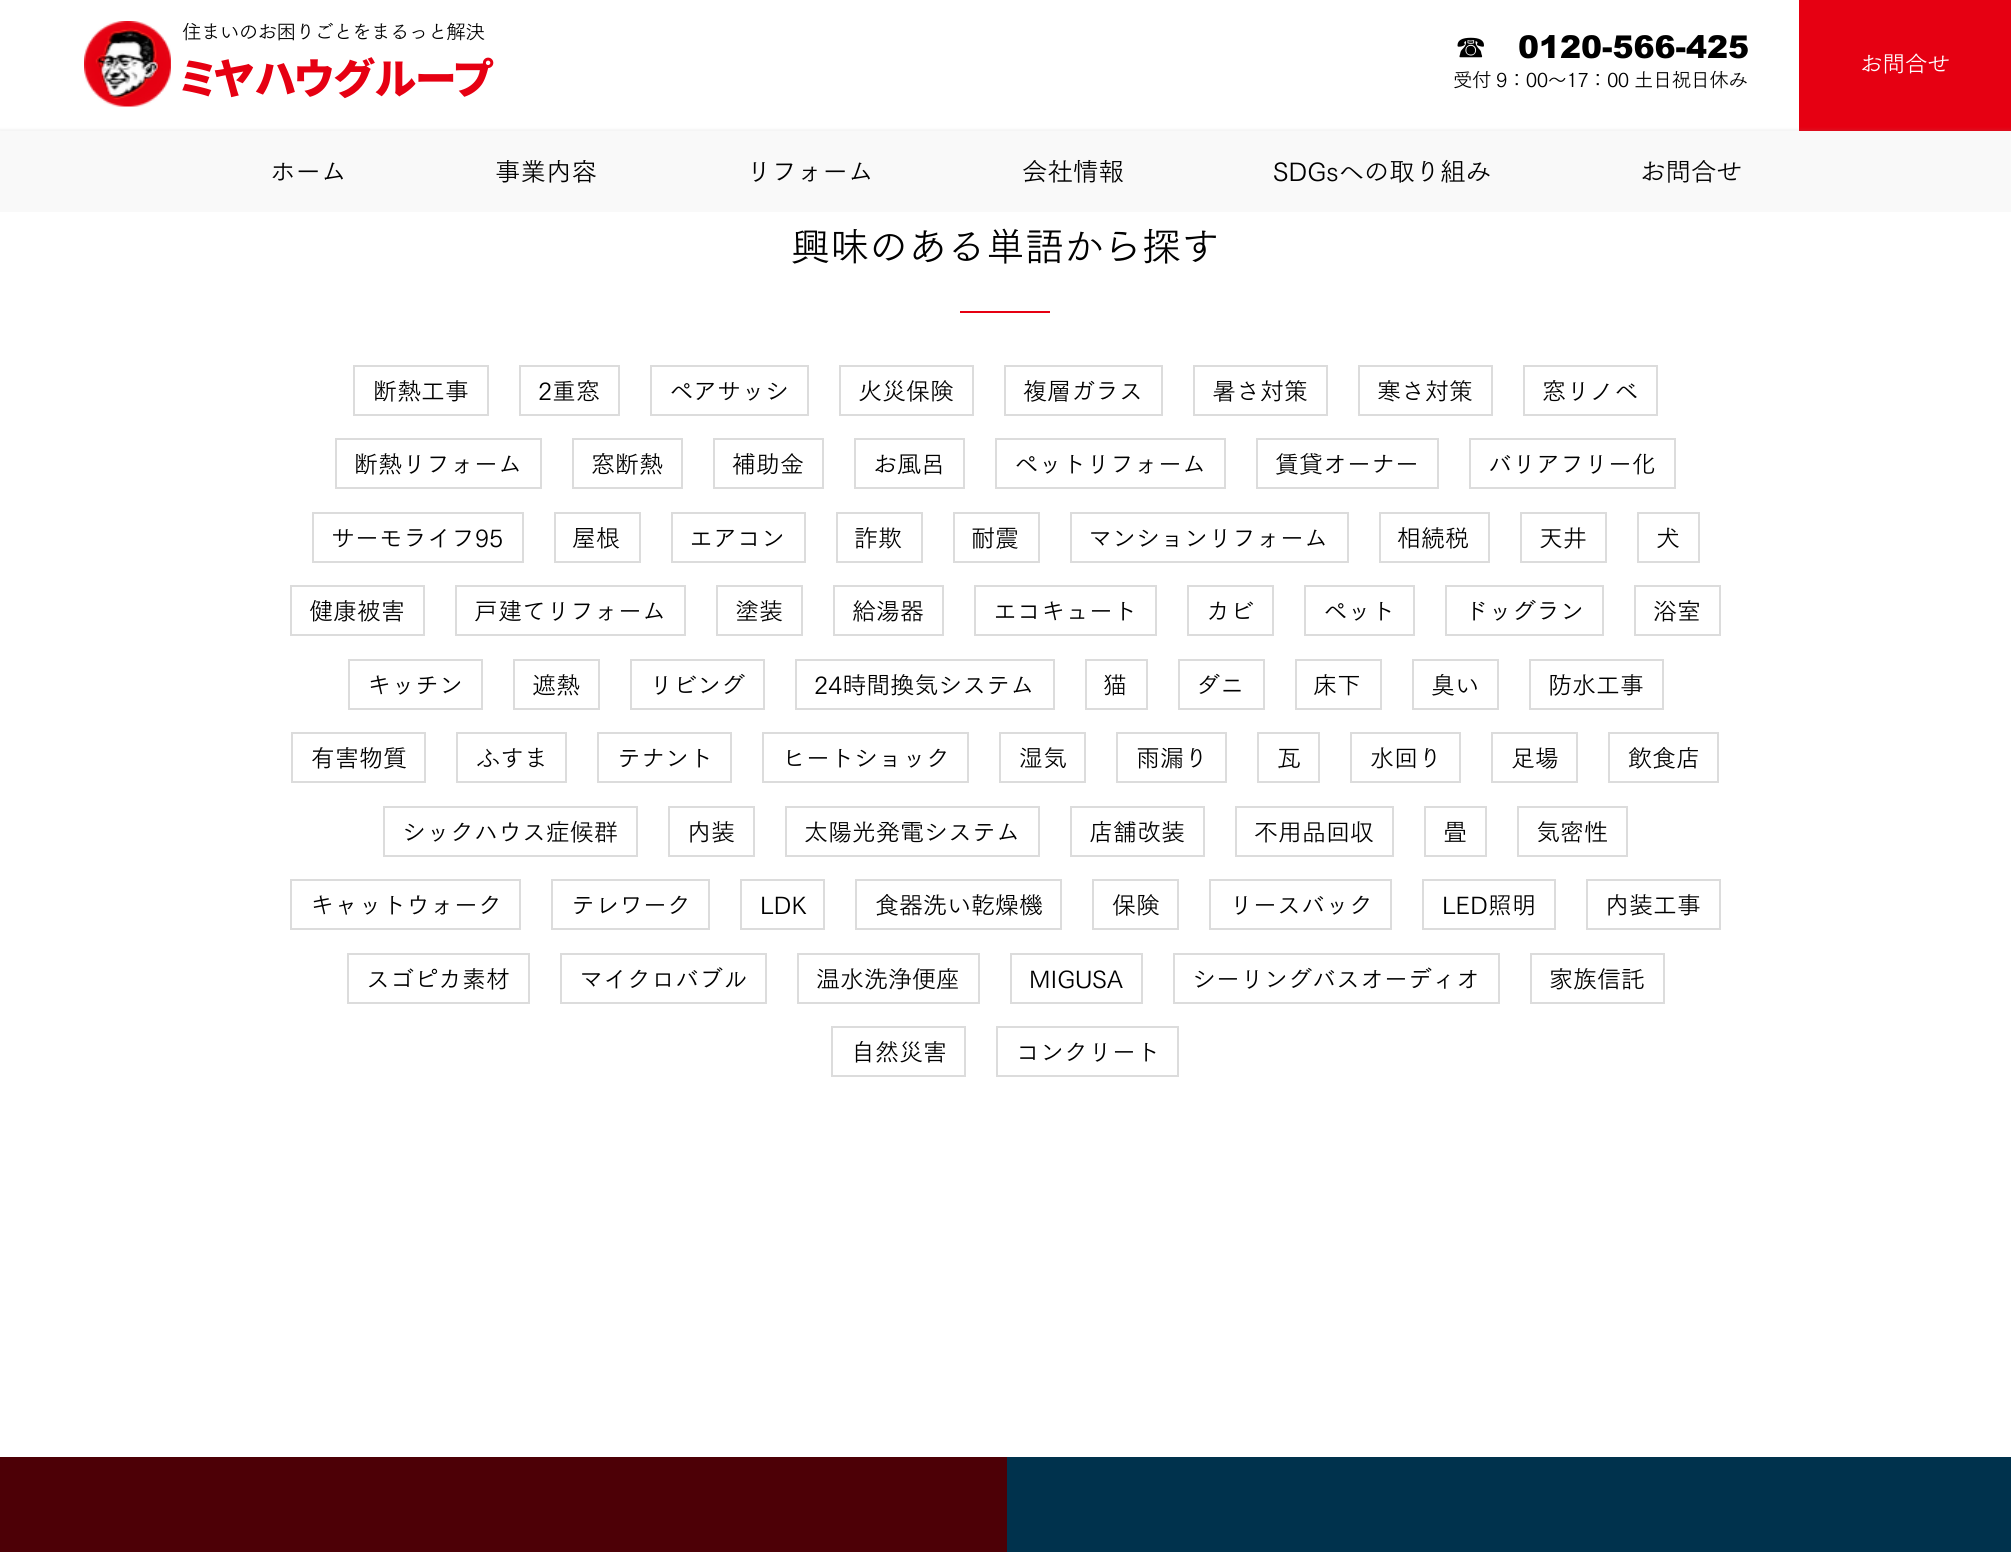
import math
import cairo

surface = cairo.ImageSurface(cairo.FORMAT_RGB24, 2011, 1552)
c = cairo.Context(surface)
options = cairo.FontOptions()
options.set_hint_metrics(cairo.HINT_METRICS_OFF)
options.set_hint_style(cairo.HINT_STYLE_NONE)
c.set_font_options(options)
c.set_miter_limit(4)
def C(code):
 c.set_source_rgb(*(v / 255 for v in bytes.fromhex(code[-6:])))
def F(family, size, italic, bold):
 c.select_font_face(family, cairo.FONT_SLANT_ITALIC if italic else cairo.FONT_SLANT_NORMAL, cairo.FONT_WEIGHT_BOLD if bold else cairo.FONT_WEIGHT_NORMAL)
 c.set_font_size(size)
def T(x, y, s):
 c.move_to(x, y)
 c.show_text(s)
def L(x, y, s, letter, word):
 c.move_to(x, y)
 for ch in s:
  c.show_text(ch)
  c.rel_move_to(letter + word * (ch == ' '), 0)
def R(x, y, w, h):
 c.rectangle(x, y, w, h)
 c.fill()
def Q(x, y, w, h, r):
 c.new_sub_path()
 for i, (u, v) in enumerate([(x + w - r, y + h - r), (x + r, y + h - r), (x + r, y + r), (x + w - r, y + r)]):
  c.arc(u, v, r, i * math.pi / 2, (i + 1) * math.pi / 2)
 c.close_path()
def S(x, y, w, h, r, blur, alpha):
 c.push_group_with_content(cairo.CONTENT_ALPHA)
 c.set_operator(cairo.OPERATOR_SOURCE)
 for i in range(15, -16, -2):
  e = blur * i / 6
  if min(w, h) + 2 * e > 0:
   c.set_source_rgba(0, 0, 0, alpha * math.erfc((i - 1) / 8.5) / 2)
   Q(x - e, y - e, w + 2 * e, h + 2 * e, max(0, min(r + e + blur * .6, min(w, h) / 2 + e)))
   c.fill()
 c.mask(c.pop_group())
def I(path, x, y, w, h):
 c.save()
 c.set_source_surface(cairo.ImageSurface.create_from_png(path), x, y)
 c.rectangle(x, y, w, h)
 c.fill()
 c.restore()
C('ffffff')
c.paint()
I('1.png',84,21,87,86)
F('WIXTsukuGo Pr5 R',19.5,0,0)
C('000000')
L(182,39,'住まいのお困りごとをまるっと解決',-.6,0)
F('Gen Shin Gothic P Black',42,0,0)
C('e60012')
L(180,94,'ミヤハウグループ',-2,0)
F('WenQuanYi Zen Hei Medium',31.5,0,0)
C('000000')
T(1455,58,'☎')
F('arial Black',31.5,0,0)
T(1518,58,'0120-566-425')
F('WIXTsukuGo Pr5 R',19.5,0,0)
L(1453,87,'受付 9：00～17：00 土日祝日休み',-.6,0)
C('e60012')
R(1799,0,212,131)
F('WIXTsukuGo Pr5 R',22.5,0,0)
C('ffffff')
T(1860,72,'お問合せ')
c.save()
c.rectangle(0,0,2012,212)
c.clip()
C('949494')
S(-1,129,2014,86,0,1,.1)
c.restore()
C('f9f9f9')
R(0,131,2011,81)
F('WIXTsukuGo Pr5 R',25.5,0,0)
C('000000')
T(270,181,'ホーム')
T(495,181,'事業内容')
T(746,181,'リフォーム')
T(1022,181,'会社情報')
T(1273,181,'SDGsへの取り組み')
T(1640,181,'お問合せ')
F('WIXTsukuGo Pr5 R',39,0,0)
T(791,261,'興味のある単語から探す')
C('e60012')
R(960,311,90,2)
c.rectangle(354,366,134,49)
C('dcdcdc')
c.stroke()
F('WIXTsukuGo Pr5 R',24,0,0)
C('000000')
T(373,400,'断熱工事')
c.rectangle(520,366,99,49)
C('dcdcdc')
c.stroke()
C('000000')
T(538,400,'2重窓')
c.rectangle(651,366,157,49)
C('dcdcdc')
c.stroke()
C('000000')
T(669,400,'ペアサッシ')
c.rectangle(840,366,133,49)
C('dcdcdc')
c.stroke()
C('000000')
T(858,400,'火災保険')
c.rectangle(1005,366,157,49)
C('dcdcdc')
c.stroke()
C('000000')
T(1023,400,'複層ガラス')
c.rectangle(1194,366,133,49)
C('dcdcdc')
c.stroke()
C('000000')
T(1212,400,'暑さ対策')
c.rectangle(1359,366,133,49)
C('dcdcdc')
c.stroke()
C('000000')
T(1377,400,'寒さ対策')
c.rectangle(1524,366,133,49)
C('dcdcdc')
c.stroke()
C('000000')
T(1542,400,'窓リノベ')
c.rectangle(336,439,205,49)
C('dcdcdc')
c.stroke()
C('000000')
T(354,473,'断熱リフォーム')
c.rectangle(573,439,109,49)
C('dcdcdc')
c.stroke()
C('000000')
T(591,473,'窓断熱')
c.rectangle(714,439,109,49)
C('dcdcdc')
c.stroke()
C('000000')
T(732,473,'補助金')
c.rectangle(855,439,109,49)
C('dcdcdc')
c.stroke()
C('000000')
T(873,473,'お風呂')
c.rectangle(996,439,229,49)
C('dcdcdc')
c.stroke()
C('000000')
T(1014,473,'ペットリフォーム')
c.rectangle(1257,439,181,49)
C('dcdcdc')
c.stroke()
C('000000')
T(1275,473,'賃貸オーナー')
c.rectangle(1470,439,205,49)
C('dcdcdc')
c.stroke()
C('000000')
T(1488,473,'バリアフリー化')
c.rectangle(313,513,210,49)
C('dcdcdc')
c.stroke()
C('000000')
T(331,547,'サーモライフ95')
c.rectangle(555,513,85,49)
C('dcdcdc')
c.stroke()
C('000000')
T(572,547,'屋根')
c.rectangle(672,513,133,49)
C('dcdcdc')
c.stroke()
C('000000')
T(689,547,'エアコン')
c.rectangle(837,513,85,49)
C('dcdcdc')
c.stroke()
C('000000')
T(854,547,'詐欺')
c.rectangle(954,513,85,49)
C('dcdcdc')
c.stroke()
C('000000')
T(971,547,'耐震')
c.rectangle(1071,513,277,49)
C('dcdcdc')
c.stroke()
C('000000')
T(1088,547,'マンションリフォーム')
c.rectangle(1380,513,109,49)
C('dcdcdc')
c.stroke()
C('000000')
T(1397,547,'相続税')
c.rectangle(1521,513,85,49)
C('dcdcdc')
c.stroke()
C('000000')
T(1539,547,'天井')
c.rectangle(1638,513,61,49)
C('dcdcdc')
c.stroke()
C('000000')
T(1656,547,'犬')
c.rectangle(291,586,133,49)
C('dcdcdc')
c.stroke()
C('000000')
T(309,620,'健康被害')
c.rectangle(456,586,229,49)
C('dcdcdc')
c.stroke()
C('000000')
T(474,620,'戸建てリフォーム')
c.rectangle(717,586,85,49)
C('dcdcdc')
c.stroke()
C('000000')
T(735,620,'塗装')
c.rectangle(834,586,109,49)
C('dcdcdc')
c.stroke()
C('000000')
T(852,620,'給湯器')
c.rectangle(975,586,181,49)
C('dcdcdc')
c.stroke()
C('000000')
T(993,620,'エコキュート')
c.rectangle(1188,586,85,49)
C('dcdcdc')
c.stroke()
C('000000')
T(1206,620,'カビ')
c.rectangle(1305,586,109,49)
C('dcdcdc')
c.stroke()
C('000000')
T(1323,620,'ペット')
c.rectangle(1446,586,157,49)
C('dcdcdc')
c.stroke()
C('000000')
T(1464,620,'ドッグラン')
c.rectangle(1635,586,85,49)
C('dcdcdc')
c.stroke()
C('000000')
T(1653,620,'浴室')
c.rectangle(349,660,133,49)
C('dcdcdc')
c.stroke()
C('000000')
T(367,694,'キッチン')
c.rectangle(514,660,85,49)
C('dcdcdc')
c.stroke()
C('000000')
T(532,694,'遮熱')
c.rectangle(631,660,133,49)
C('dcdcdc')
c.stroke()
C('000000')
T(649,694,'リビング')
c.rectangle(796,660,258,49)
C('dcdcdc')
c.stroke()
C('000000')
T(814,694,'24時間換気システム')
c.rectangle(1086,660,61,49)
C('dcdcdc')
c.stroke()
C('000000')
T(1103,694,'猫')
c.rectangle(1179,660,85,49)
C('dcdcdc')
c.stroke()
C('000000')
T(1196,694,'ダニ')
c.rectangle(1296,660,85,49)
C('dcdcdc')
c.stroke()
C('000000')
T(1313,694,'床下')
c.rectangle(1413,660,85,49)
C('dcdcdc')
c.stroke()
C('000000')
T(1431,694,'臭い')
c.rectangle(1530,660,133,49)
C('dcdcdc')
c.stroke()
C('000000')
T(1548,694,'防水工事')
c.rectangle(292,733,133,49)
C('dcdcdc')
c.stroke()
C('000000')
T(311,767,'有害物質')
c.rectangle(457,733,109,49)
C('dcdcdc')
c.stroke()
C('000000')
T(476,767,'ふすま')
c.rectangle(598,733,133,49)
C('dcdcdc')
c.stroke()
C('000000')
T(617,767,'テナント')
c.rectangle(763,733,205,49)
C('dcdcdc')
c.stroke()
C('000000')
T(782,767,'ヒートショック')
c.rectangle(1000,733,85,49)
C('dcdcdc')
c.stroke()
C('000000')
T(1019,767,'湿気')
c.rectangle(1117,733,109,49)
C('dcdcdc')
c.stroke()
C('000000')
T(1136,767,'雨漏り')
c.rectangle(1258,733,61,49)
C('dcdcdc')
c.stroke()
C('000000')
T(1277,767,'瓦')
c.rectangle(1351,733,109,49)
C('dcdcdc')
c.stroke()
C('000000')
T(1370,767,'水回り')
c.rectangle(1492,733,85,49)
C('dcdcdc')
c.stroke()
C('000000')
T(1511,767,'足場')
c.rectangle(1609,733,109,49)
C('dcdcdc')
c.stroke()
C('000000')
T(1628,767,'飲食店')
c.rectangle(384,807,253,49)
C('dcdcdc')
c.stroke()
C('000000')
T(402,841,'シックハウス症候群')
c.rectangle(669,807,85,49)
C('dcdcdc')
c.stroke()
C('000000')
T(687,841,'内装')
c.rectangle(786,807,253,49)
C('dcdcdc')
c.stroke()
C('000000')
T(804,841,'太陽光発電システム')
c.rectangle(1071,807,133,49)
C('dcdcdc')
c.stroke()
C('000000')
T(1089,841,'店舗改装')
c.rectangle(1236,807,157,49)
C('dcdcdc')
c.stroke()
C('000000')
T(1254,841,'不用品回収')
c.rectangle(1425,807,61,49)
C('dcdcdc')
c.stroke()
C('000000')
T(1443,841,'畳')
c.rectangle(1518,807,109,49)
C('dcdcdc')
c.stroke()
C('000000')
T(1536,841,'気密性')
c.rectangle(291,880,229,49)
C('dcdcdc')
c.stroke()
C('000000')
T(310,914,'キャットウォーク')
c.rectangle(552,880,157,49)
C('dcdcdc')
c.stroke()
C('000000')
T(571,914,'テレワーク')
c.rectangle(741,880,83,49)
C('dcdcdc')
c.stroke()
C('000000')
T(760,914,'LDK')
c.rectangle(856,880,205,49)
C('dcdcdc')
c.stroke()
C('000000')
T(875,914,'食器洗い乾燥機')
c.rectangle(1093,880,85,49)
C('dcdcdc')
c.stroke()
C('000000')
T(1112,914,'保険')
c.rectangle(1210,880,181,49)
C('dcdcdc')
c.stroke()
C('000000')
T(1229,914,'リースバック')
c.rectangle(1423,880,132,49)
C('dcdcdc')
c.stroke()
C('000000')
T(1442,914,'LED照明')
c.rectangle(1587,880,133,49)
C('dcdcdc')
c.stroke()
C('000000')
T(1605,914,'内装工事')
c.rectangle(348,954,181,49)
C('dcdcdc')
c.stroke()
C('000000')
T(366,988,'スゴピカ素材')
c.rectangle(561,954,205,49)
C('dcdcdc')
c.stroke()
C('000000')
T(579,988,'マイクロバブル')
c.rectangle(798,954,181,49)
C('dcdcdc')
c.stroke()
C('000000')
T(816,988,'温水洗浄便座')
c.rectangle(1011,954,131,49)
C('dcdcdc')
c.stroke()
C('000000')
T(1029,988,'MIGUSA')
c.rectangle(1174,954,325,49)
C('dcdcdc')
c.stroke()
C('000000')
T(1192,988,'シーリングバスオーディオ')
c.rectangle(1531,954,133,49)
C('dcdcdc')
c.stroke()
C('000000')
T(1549,988,'家族信託')
c.rectangle(832,1027,133,49)
C('dcdcdc')
c.stroke()
C('000000')
T(851,1061,'自然災害')
c.rectangle(997,1027,181,49)
C('dcdcdc')
c.stroke()
C('000000')
T(1016,1061,'コンクリート')
C('4d0006')
R(0,1457,1007,95)
C('00324d')
R(1007,1457,1004,95)
surface.write_to_png('o.png')
